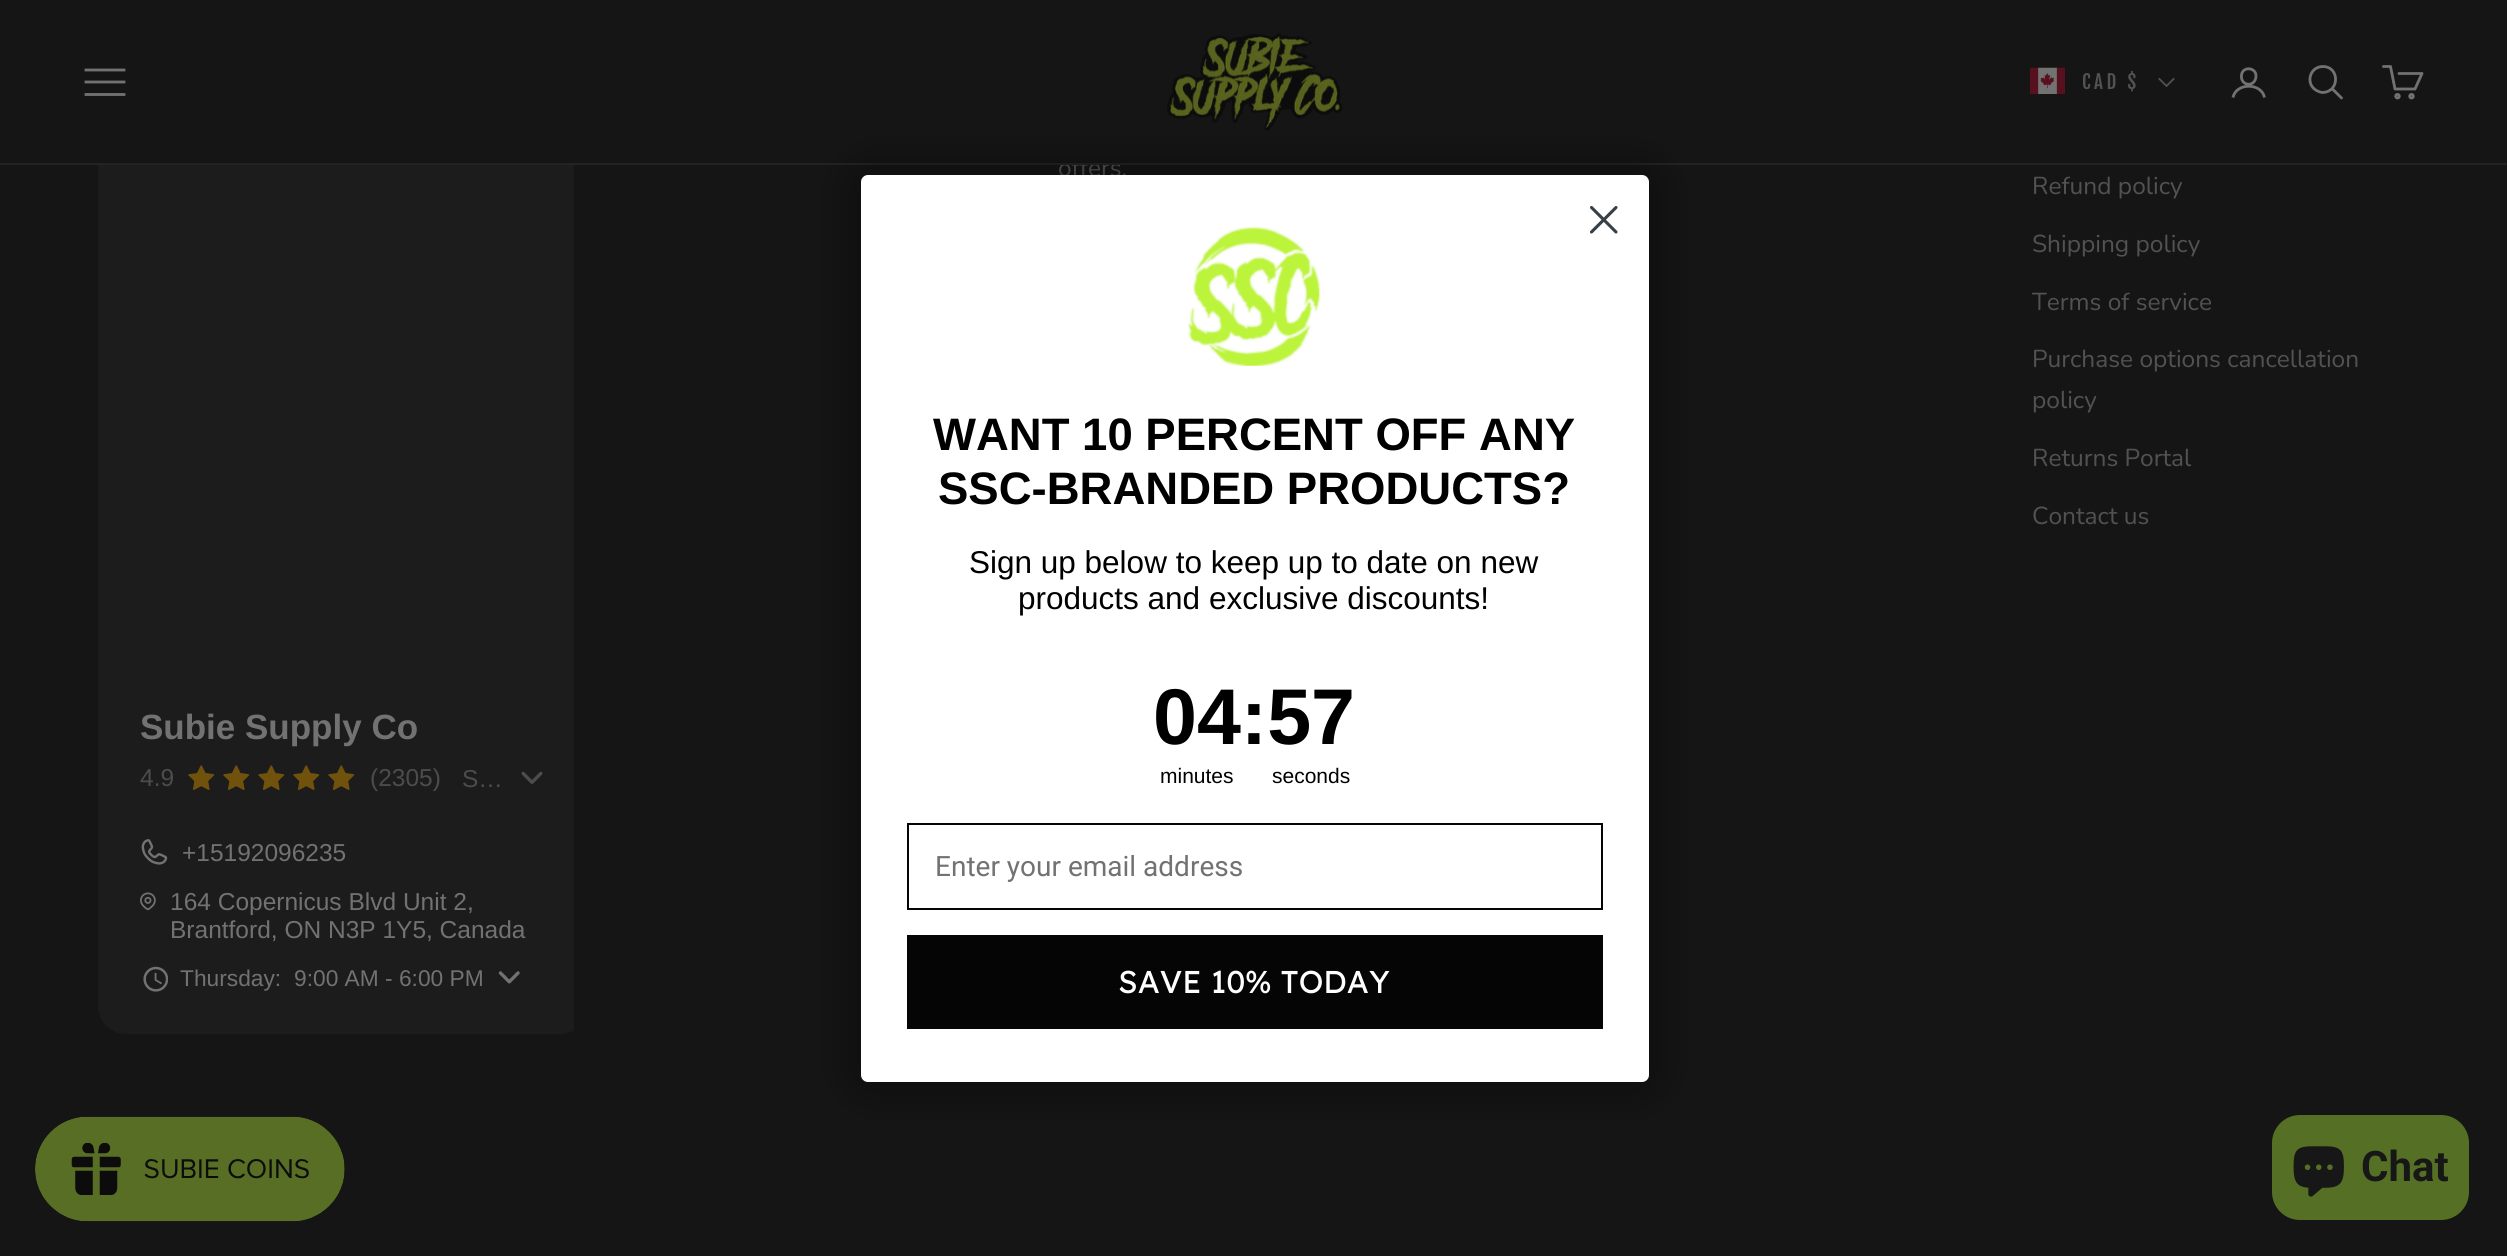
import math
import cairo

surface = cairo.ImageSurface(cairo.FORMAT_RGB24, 2507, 1256)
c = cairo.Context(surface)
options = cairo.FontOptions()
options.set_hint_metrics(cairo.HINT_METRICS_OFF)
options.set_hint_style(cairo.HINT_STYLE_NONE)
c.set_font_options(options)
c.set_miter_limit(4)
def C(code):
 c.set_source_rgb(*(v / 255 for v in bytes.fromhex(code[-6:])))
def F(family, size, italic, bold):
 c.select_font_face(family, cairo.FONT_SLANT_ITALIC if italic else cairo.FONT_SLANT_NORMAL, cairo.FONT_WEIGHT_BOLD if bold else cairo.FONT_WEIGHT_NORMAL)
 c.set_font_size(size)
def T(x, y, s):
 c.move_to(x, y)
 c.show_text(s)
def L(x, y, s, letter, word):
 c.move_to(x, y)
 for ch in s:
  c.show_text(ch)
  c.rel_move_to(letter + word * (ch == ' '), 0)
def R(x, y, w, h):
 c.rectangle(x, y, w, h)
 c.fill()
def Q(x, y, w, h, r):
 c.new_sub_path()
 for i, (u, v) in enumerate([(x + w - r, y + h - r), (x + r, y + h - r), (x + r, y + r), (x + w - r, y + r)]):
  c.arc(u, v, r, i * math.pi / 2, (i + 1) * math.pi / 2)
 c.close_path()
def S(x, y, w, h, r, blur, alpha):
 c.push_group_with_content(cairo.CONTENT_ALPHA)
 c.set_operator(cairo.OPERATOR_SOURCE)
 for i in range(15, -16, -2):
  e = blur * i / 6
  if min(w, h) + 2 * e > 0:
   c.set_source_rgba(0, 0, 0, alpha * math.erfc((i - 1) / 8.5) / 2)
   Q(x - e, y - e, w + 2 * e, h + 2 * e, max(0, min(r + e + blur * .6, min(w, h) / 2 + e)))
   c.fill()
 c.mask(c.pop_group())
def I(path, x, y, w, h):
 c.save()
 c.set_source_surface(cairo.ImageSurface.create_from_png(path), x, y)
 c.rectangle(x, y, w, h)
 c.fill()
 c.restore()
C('151515')
c.paint()
F('Nunito',24.5,0,0)
C('525252')
T(1058,176,'offers.')
c.save()
c.rectangle(98,63,476,971)
c.clip()
C('1c1c1c')
Q(98,63,490,971,28)
c.fill()
c.restore()
C('151515')
R(98,63,991,100)
C('232323')
R(0,163,2507,2)
c.new_path()
c.move_to(86,94.5)
c.line_to(124,94.5)
c.move_to(86,82)
c.line_to(124,82)
c.move_to(86,70)
c.line_to(124,70)
C('727272')
c.set_line_width(2.8)
c.set_line_cap(cairo.LINE_CAP_SQUARE)
c.stroke()
I('1.png',1167,32,176,99)
I('2.png',2030,67,35,27)
F('Fjalla One',19,0,0)
C('525252')
L(2082,89,'CAD $',3.5,0)
c.new_path()
c.move_to(2159.5,79)
c.line_to(2166.5,86)
c.line_to(2173.5,79)
c.set_line_width(1.8)
c.stroke()
c.new_path()
c.move_to(2256,76.5)
c.curve_to(2255,88,2240,86,2241.5,75)
c.curve_to(2242.5,66,2256.5,67,2256,76.5)
c.close_path()
C('727272')
c.set_line_width(2.8)
c.set_line_cap(cairo.LINE_CAP_ROUND)
c.set_line_join(cairo.LINE_JOIN_ROUND)
c.stroke()
c.new_path()
c.move_to(2233,97.5)
c.curve_to(2236,82.5,2261.5,82.5,2264.5,97.5)
c.set_line_cap(cairo.LINE_CAP_BUTT)
c.set_line_join(cairo.LINE_JOIN_MITER)
c.stroke()
c.new_path()
c.move_to(2323,66.5)
c.curve_to(2309.5,66.5,2305,84,2316.5,90.5)
c.curve_to(2318.5,91.5,2320.5,92.5,2323,92.5)
c.curve_to(2340,91.5,2339.5,66.5,2323,66.5)
c.close_path()
c.stroke()
c.new_path()
c.move_to(2332.5,89)
c.line_to(2341.5,98)
c.set_line_cap(cairo.LINE_CAP_ROUND)
c.stroke()
c.new_path()
c.move_to(2399,73.5)
c.line_to(2422,73.5)
c.line_to(2415,89)
c.line_to(2395,89)
c.line_to(2390.5,66.5)
c.line_to(2383.5,66.5)
c.set_line_join(cairo.LINE_JOIN_ROUND)
c.stroke()
c.arc(2397.5,96.2,1.8,0,2 * math.pi)
c.set_line_cap(cairo.LINE_CAP_BUTT)
c.set_line_join(cairo.LINE_JOIN_MITER)
c.stroke()
c.arc(2411.5,96.2,1.8,0,2 * math.pi)
c.stroke()
F('Nunito',24.5,0,0)
C('525252')
T(2032,194,'Refund policy')
T(2032,252,'Shipping policy')
T(2032,310,'Terms of service')
T(2032,367,'Purchase options cancellation')
T(2032,408,'policy')
T(2032,466,'Returns Portal')
T(2032,524,'Contact us')
F('Liberation Sans',35,0,1)
C('727272')
T(140,739,'Subie Supply Co')
F('Liberation Sans',24.5,0,0)
C('4c4c4c')
T(140,786,'4.9')
I('3.png',188,765,27,25)
I('3.png',223,765,27,25)
I('3.png',258,765,27,25)
I('3.png',293,765,27,25)
I('3.png',328,765,27,25)
T(370,786,'(2305)')
T(462,787,'S…')
I('4.png',521,771,22,13)
I('5.png',141,839,27,26)
C('727272')
T(182,861,'+15192096235')
I('6.png',140,892,16,19)
T(170,910,'164 Copernicus Blvd Unit 2,')
T(170,938,'Brantford, ON N3P 1Y5, Canada')
I('7.png',143,966,25,26)
F('Liberation Sans',22.75,0,0)
T(180,986,'Thursday:')
T(294,986,'9:00 AM - 6:00 PM')
I('8.png',498,971,22,13)
C('000000')
S(861,175,788,907,7,26,.5)
C('ffffff')
Q(861,175,788,907,7)
c.fill()
c.new_path()
c.move_to(1591.5,207.5)
c.line_to(1616,232)
c.move_to(1591.5,232)
c.line_to(1616,207.5)
c.close_path()
C('373f47')
c.set_line_width(3.1)
c.set_line_cap(cairo.LINE_CAP_ROUND)
c.set_line_join(cairo.LINE_JOIN_ROUND)
c.stroke()
I('9.png',1188,226,133,140)
F('Liberation Sans',45.5,0,1)
C('000000')
T(933,450,'WANT 10 PERCENT OFF ANY')
T(938,504,'SSC-BRANDED PRODUCTS?')
F('Liberation Sans',31.5,0,0)
T(969,573,'Sign up below to keep up to date on new')
T(1018,609,'products and exclusive discounts!')
F('Liberation Sans',79,0,1)
T(1153,744,'04:57')
F('Liberation Sans',21,0,0)
T(1160,783,'minutes')
T(1272,783,'seconds')
c.rectangle(908,824,694,85)
C('050505')
c.set_line_width(2)
c.set_line_cap(cairo.LINE_CAP_BUTT)
c.set_line_join(cairo.LINE_JOIN_MITER)
c.stroke()
F('Roboto',28,0,0)
C('727272')
T(935,876,'Enter your email address')
C('050505')
R(907,935,696,94)
F('Lexend',31.5,0,0)
C('ffffff')
T(1118,993,'SAVE 10% TODAY')
I('10.png',35,1116,310,106)
C('557024')
Q(2272,1115,197,105,28)
c.fill()
I('11.png',2293,1146,51,51)
F('Roboto',42,0,1)
C('171717')
T(2361,1181,'Chat')
surface.write_to_png('o.png')
